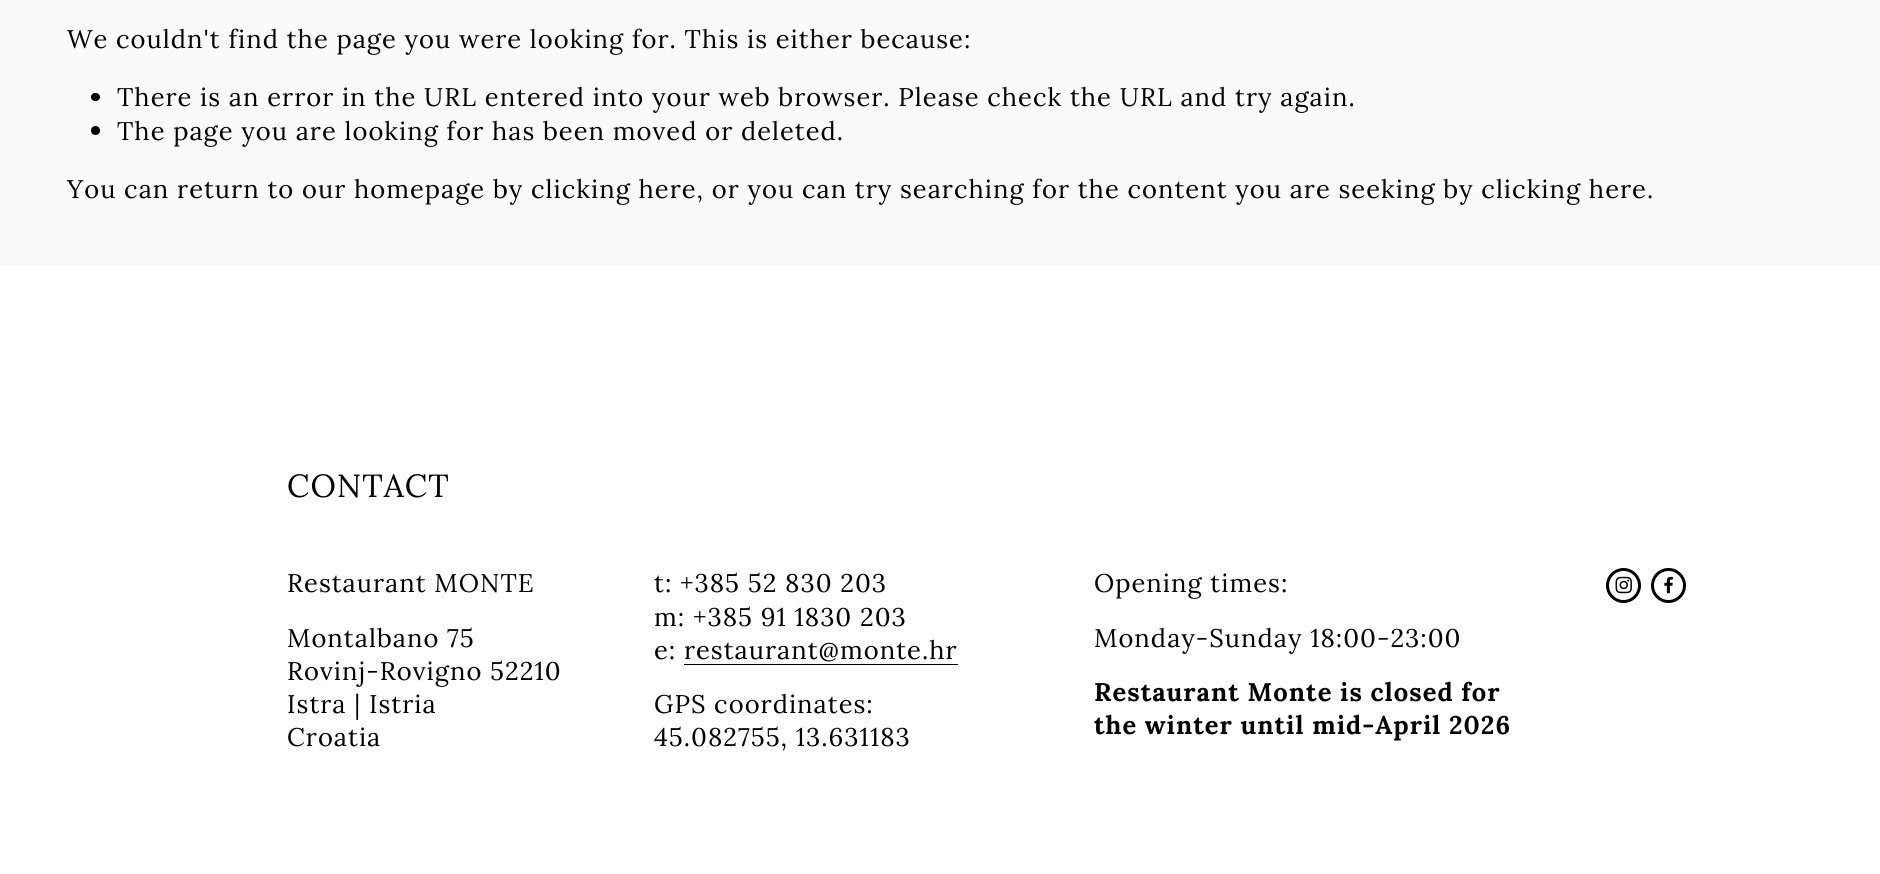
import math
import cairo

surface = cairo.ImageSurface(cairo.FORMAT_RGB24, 1880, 874)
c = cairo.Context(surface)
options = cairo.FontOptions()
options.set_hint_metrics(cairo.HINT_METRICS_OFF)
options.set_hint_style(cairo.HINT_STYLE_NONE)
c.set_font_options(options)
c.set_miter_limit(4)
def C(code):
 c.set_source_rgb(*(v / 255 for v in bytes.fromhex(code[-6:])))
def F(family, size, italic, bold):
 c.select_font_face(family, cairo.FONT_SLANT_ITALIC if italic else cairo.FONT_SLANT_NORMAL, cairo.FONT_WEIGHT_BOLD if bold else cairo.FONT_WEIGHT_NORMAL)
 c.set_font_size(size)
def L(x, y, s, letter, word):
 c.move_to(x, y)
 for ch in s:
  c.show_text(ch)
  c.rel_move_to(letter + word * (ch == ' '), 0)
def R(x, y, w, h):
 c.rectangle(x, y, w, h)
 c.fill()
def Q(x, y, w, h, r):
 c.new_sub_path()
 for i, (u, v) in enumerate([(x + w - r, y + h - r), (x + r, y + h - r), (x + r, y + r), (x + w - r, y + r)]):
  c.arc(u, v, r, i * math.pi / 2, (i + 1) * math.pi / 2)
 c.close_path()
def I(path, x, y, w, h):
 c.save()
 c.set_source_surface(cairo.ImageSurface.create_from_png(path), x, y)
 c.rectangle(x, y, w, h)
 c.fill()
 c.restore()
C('fafafa')
c.paint()
F('Lora',25.5,0,0)
C('000000')
L(67,48,'We couldn\'t find the page you were looking for. This is either because:',1.02,0)
Q(91,93,9,8,4)
c.fill()
L(117,106,'There is an error in the URL entered into your web browser. Please check the URL and try again.',1.02,0)
c.new_path()
c.arc(95.5,130.5,4.5,0,2 * math.pi)
c.fill()
L(117,140,'The page you are looking for has been moved or deleted.',1.02,0)
L(67,198,'You can return to our homepage by clicking here, or you can try searching for the content you are seeking by clicking here.',1.02,0)
C('ffffff')
R(0,265,1880,609)
F('Lora',32,0,0)
C('000000')
L(287,497,'CONTACT',1.02,0)
F('Lora',25.5,0,0)
L(287,592,'Restaurant MONTE',1.02,0)
L(287,647,'Montalbano 75',1.02,0)
L(287,680,'Rovinj-Rovigno 52210',1.02,0)
L(287,713,'Istra | Istria',1.02,0)
L(287,746,'Croatia',1.02,0)
L(654,592,'t: +385 52 830 203',1.02,0)
L(654,626,'m: +385 91 1830 203',1.02,0)
L(654,659,'e: restaurant@monte.hr',1.02,0)
R(684,664,274,1)
L(654,713,'GPS coordinates:',1.02,0)
L(654,746,'45.082755, 13.631183',1.02,0)
L(1094,592,'Opening times:',1.02,0)
L(1094,647,'Monday-Sunday 18:00-23:00',1.02,0)
F('Lora',25.5,0,1)
L(1094,701,'Restaurant Monte is closed for',1.02,0)
L(1094,734,'the winter until mid-April 2026',1.02,0)
c.new_path()
c.arc(1623.5,585.5,16,0,2 * math.pi)
c.set_line_width(3)
c.stroke()
I('1.png',1615,576,17,18)
c.arc(1668.5,585.5,16,0,2 * math.pi)
c.stroke()
I('2.png',1664,576,9,18)
surface.write_to_png('o.png')
